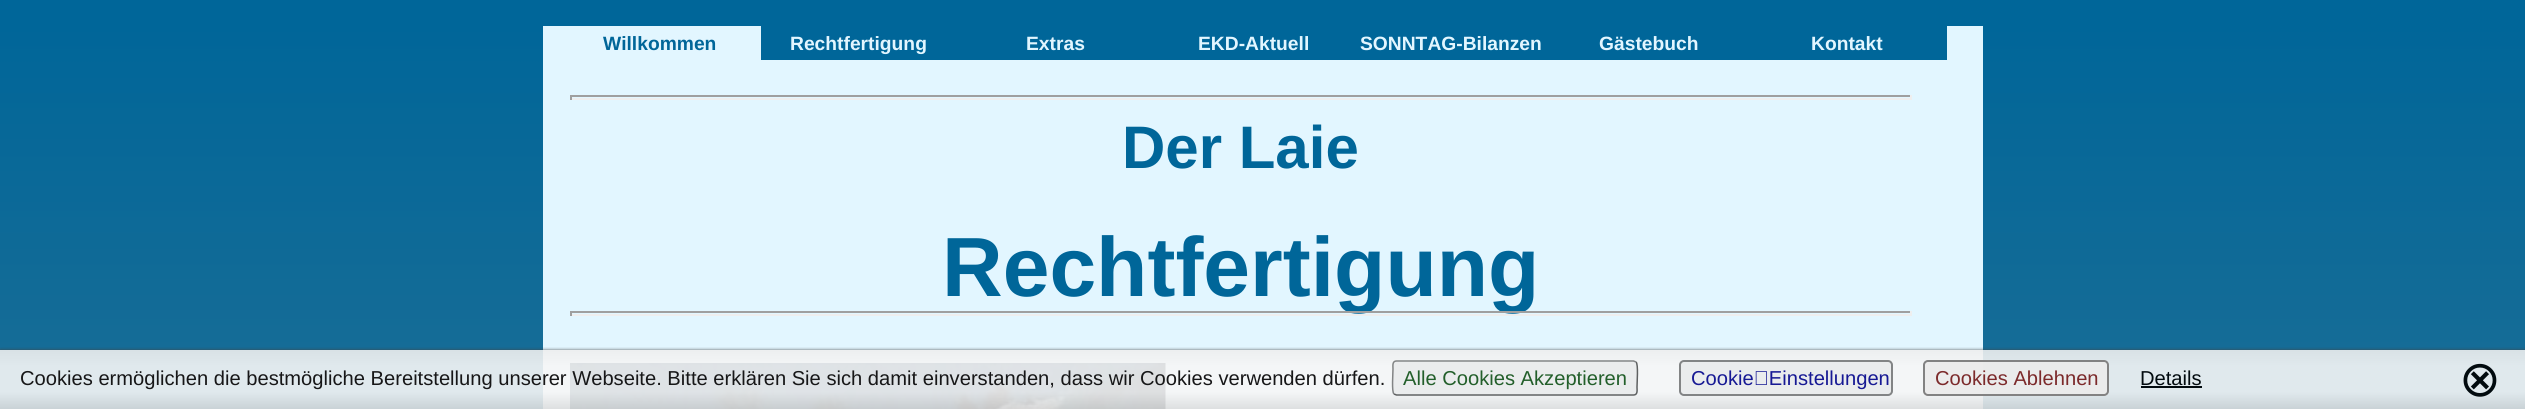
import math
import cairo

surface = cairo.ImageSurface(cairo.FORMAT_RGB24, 2525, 409)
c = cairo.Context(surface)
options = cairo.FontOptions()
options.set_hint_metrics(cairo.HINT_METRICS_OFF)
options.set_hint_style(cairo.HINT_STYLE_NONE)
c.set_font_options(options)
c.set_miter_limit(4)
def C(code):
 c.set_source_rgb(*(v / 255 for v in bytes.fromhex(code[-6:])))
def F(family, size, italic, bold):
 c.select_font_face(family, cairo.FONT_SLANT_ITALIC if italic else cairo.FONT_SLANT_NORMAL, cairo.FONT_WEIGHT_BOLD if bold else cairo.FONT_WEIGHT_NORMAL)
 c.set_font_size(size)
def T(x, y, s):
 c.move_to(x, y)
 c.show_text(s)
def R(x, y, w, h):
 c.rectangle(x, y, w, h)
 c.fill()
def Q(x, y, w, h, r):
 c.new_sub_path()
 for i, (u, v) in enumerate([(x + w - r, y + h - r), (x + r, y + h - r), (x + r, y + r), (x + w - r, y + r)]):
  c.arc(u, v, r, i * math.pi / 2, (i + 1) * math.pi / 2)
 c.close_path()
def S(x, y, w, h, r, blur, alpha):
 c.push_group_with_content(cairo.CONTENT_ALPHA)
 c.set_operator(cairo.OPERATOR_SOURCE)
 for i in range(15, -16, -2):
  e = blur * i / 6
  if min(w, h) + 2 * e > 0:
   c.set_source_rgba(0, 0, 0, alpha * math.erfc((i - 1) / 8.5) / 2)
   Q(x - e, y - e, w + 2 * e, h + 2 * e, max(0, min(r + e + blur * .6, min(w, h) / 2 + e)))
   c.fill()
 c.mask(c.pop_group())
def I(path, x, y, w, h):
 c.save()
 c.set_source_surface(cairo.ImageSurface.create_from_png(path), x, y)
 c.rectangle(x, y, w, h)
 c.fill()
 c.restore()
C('ffffff')
c.paint()
I('1.png',0,0,2525,409)
C('e2f6ff')
R(543,26,1440,383)
F('Liberation Sans',19.25,0,1)
C('006699')
T(603,50,'Willkommen')
R(761,26,1186,34)
C('e2f6ff')
T(790,50,'Rechtfertigung')
T(1026,50,'Extras')
T(1198,50,'EKD-Aktuell')
T(1360,50,'SONNTAG-Bilanzen')
T(1599,50,'Gästebuch')
T(1811,50,'Kontakt')
C('9f9f9f')
R(570,95,1341,2)
C('eeeeee')
R(1910,95,2,5)
R(570,98,1341,2)
C('9f9f9f')
R(570,95,2,5)
F('Liberation Sans',60,0,1)
C('006699')
T(1122,168,'Der Laie')
F('Liberation Sans',84,0,1)
T(942,296,'Rechtfertigung')
C('9f9f9f')
R(570,311,1341,2)
C('eeeeee')
R(1910,311,2,5)
R(570,314,1341,2)
C('9f9f9f')
R(570,311,2,5)
I('2.png',570,363,596,46)
c.save()
c.rectangle(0,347,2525,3)
c.clip()
C('444444')
S(0,350,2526,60,0,1.5,.9)
c.restore()
gradient = cairo.LinearGradient(1263,349,1263,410)
gradient.add_color_stop_rgba(0,0.933,0.933,0.933,.9)
gradient.add_color_stop_rgba(.3,0.969,0.969,0.969,.9)
gradient.add_color_stop_rgba(.7,0.969,0.969,0.969,.9)
gradient.add_color_stop_rgba(.99,0.867,0.867,0.867,.9)
c.set_source(gradient)
R(0,350,2525,59)
F('Liberation Sans',20.15,0,0)
C('171718')
T(20,385,'Cookies ermöglichen die bestmögliche Bereitstellung unserer Webseite. Bitte erklären Sie sich damit einverstanden, dass wir Cookies verwenden dürfen.')
C('eaeced')
Q(1392,360,246,36,5)
c.fill()
c.new_path()
c.move_to(1636,362)
c.curve_to(1638.5,364,1637,383,1637,387)
c.curve_to(1637,390,1638,395,1633.5,395)
c.line_to(1396.5,395)
c.line_to(1394,394)
C('5e6061')
c.set_line_width(1.5)
c.stroke()
c.new_path()
c.move_to(1394,394)
c.curve_to(1391.5,392,1393,373,1393,369)
c.curve_to(1393,366,1392,361,1396.5,361)
c.line_to(1633.5,361)
c.line_to(1636,362)
C('828485')
c.stroke()
C('235f2b')
T(1403,385,'Alle Cookies Akzeptieren')
C('eaeced')
Q(1680,361,212,34,4)
c.fill_preserve()
C('828485')
c.set_line_width(2)
c.stroke()
C('171994')
T(1691,385,'Cookie‑Einstellungen')
c.set_source_rgba(0.922,0.922,0.922,0.9)
Q(1923,360,186,36,5)
c.fill()
Q(1924,361,184,34,4)
c.set_source_rgba(0.467,0.467,0.467,0.9)
c.stroke()
C('7c2a2b')
T(1935,385,'Cookies Ablehnen')
C('020b0f')
T(2140,385,'Details')
R(2141,386,61,2)
F('DejaVu Sans',50,0,0)
T(2459,396,'⊗')
surface.write_to_png('o.png')
